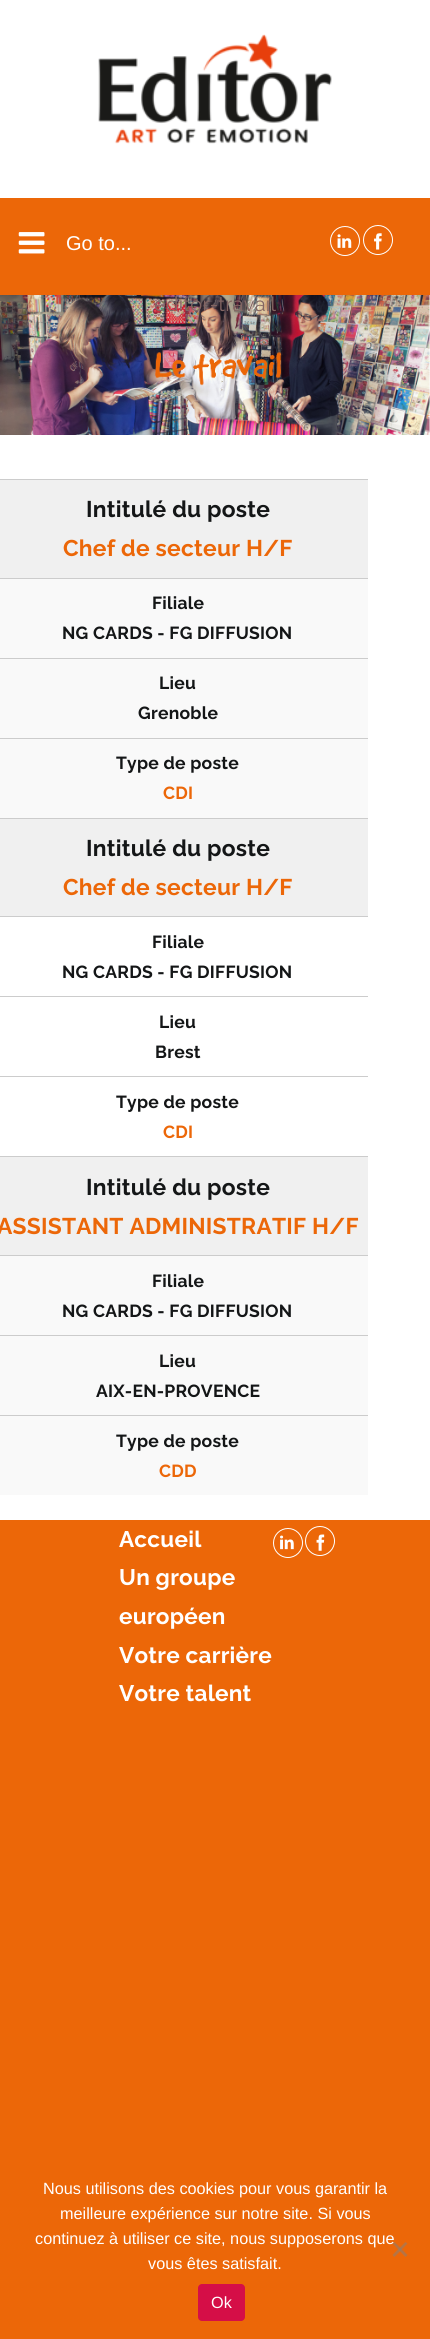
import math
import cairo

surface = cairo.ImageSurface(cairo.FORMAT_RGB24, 430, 2339)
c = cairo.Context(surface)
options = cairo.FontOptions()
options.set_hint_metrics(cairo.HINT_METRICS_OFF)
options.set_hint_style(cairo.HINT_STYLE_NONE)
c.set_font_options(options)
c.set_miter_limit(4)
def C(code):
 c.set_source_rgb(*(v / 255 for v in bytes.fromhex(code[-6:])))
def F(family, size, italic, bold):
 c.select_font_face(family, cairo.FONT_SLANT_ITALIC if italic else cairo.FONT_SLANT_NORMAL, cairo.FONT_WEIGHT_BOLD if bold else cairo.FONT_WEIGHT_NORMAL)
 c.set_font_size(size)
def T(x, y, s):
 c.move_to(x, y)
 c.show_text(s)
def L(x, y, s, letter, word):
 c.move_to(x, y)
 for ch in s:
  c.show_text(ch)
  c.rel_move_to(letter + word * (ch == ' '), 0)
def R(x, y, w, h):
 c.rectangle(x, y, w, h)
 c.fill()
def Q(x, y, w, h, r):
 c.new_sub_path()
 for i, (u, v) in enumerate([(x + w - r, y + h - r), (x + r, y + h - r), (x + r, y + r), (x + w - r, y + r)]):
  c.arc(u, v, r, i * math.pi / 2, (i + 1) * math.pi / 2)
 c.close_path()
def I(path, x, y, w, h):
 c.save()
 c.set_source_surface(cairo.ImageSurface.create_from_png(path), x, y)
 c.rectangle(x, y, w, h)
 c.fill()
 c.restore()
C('ec6708')
c.paint()
C('ffffff')
R(0,0,430,198)
I('1.png',98,34,234,110)
I('2.png',18,232,27,22)
F('Liberation Sans',20,0,0)
T(66,250,'Go to...')
c.new_path()
c.arc(345,241,14.5,0,2 * math.pi)
c.set_line_width(1)
c.stroke()
I('3.png',337,234,15,14)
c.arc(378,240,14.5,0,2 * math.pi)
c.stroke()
I('4.png',374,233,8,17)
I('5.png',0,295,430,140)
F('Raleway',20,0,0)
C('846663')
L(154,311,'editor-travail',.25,0)
C('ffffff')
R(0,435,430,1085)
C('f9f9f9')
R(0,579,368,239)
C('f0f0f0')
R(0,480,368,98)
C('cccccc')
R(0,479,368,1)
F('Raleway',22.75,0,1)
C('141617')
L(86,517,'Intitulé du poste',.25,0)
C('ec6708')
L(63,556,'Chef de secteur H/F',.25,0)
C('cccccc')
R(0,578,368,1)
F('Raleway',17.5,0,1)
C('141617')
L(152,609,'Filiale',.25,0)
L(62,639,'NG CARDS - FG DIFFUSION',.25,0)
C('cccccc')
R(0,658,368,1)
C('141617')
L(159,689,'Lieu',.25,0)
L(138,719,'Grenoble',.25,0)
C('cccccc')
R(0,738,368,1)
C('141617')
L(116,769,'Type de poste',.25,0)
C('ec6708')
L(163,799,'CDI',.25,0)
C('f0f0f0')
R(0,819,368,97)
C('cccccc')
R(0,818,368,1)
F('Raleway',22.75,0,1)
C('141617')
L(86,856,'Intitulé du poste',.25,0)
C('ec6708')
L(63,895,'Chef de secteur H/F',.25,0)
C('cccccc')
R(0,916,368,1)
F('Raleway',17.5,0,1)
C('141617')
L(152,948,'Filiale',.25,0)
L(62,978,'NG CARDS - FG DIFFUSION',.25,0)
C('cccccc')
R(0,996,368,1)
C('141617')
L(159,1028,'Lieu',.25,0)
L(155,1058,'Brest',.25,0)
C('cccccc')
R(0,1076,368,1)
C('141617')
L(116,1108,'Type de poste',.25,0)
C('ec6708')
L(163,1138,'CDI',.25,0)
C('f9f9f9')
R(0,1256,368,239)
C('f0f0f0')
R(0,1157,368,98)
C('cccccc')
R(0,1156,368,1)
F('Raleway',22.75,0,1)
C('141617')
L(86,1195,'Intitulé du poste',.25,0)
C('ec6708')
L(-3,1234,'ASSISTANT ADMINISTRATIF H/F',.25,0)
C('cccccc')
R(0,1255,368,1)
F('Raleway',17.5,0,1)
C('141617')
L(152,1287,'Filiale',.25,0)
L(62,1317,'NG CARDS - FG DIFFUSION',.25,0)
C('cccccc')
R(0,1335,368,1)
C('141617')
L(159,1367,'Lieu',.25,0)
L(96,1397,'AIX-EN-PROVENCE',.25,0)
C('cccccc')
R(0,1415,368,1)
C('141617')
L(116,1447,'Type de poste',.25,0)
C('ec6708')
L(159,1477,'CDD',.25,0)
F('Raleway',22.5,0,1)
C('ffffff')
L(119,1547,'Accueil',.25,0)
L(119,1585,'Un groupe',.25,0)
L(119,1624,'européen',.25,0)
L(119,1663,'Votre carrière',.25,0)
L(119,1701,'Votre talent',.25,0)
c.new_path()
c.arc(288,1543,14.5,0,2 * math.pi)
c.stroke()
I('6.png',280,1535,14,15)
c.arc(320,1541,14.5,0,2 * math.pi)
c.stroke()
I('7.png',316,1534,9,17)
F('Liberation Sans',16.25,0,0)
T(43,2194,'Nous utilisons des cookies pour vous garantir la')
T(60,2219,'meilleure expérience sur notre site. Si vous')
T(35,2244,'continuez à utiliser ce site, nous supposerons que')
T(148,2269,'vous êtes satisfait.')
C('b67444')
c.new_path()
c.move_to(405.5,2242)
c.line_to(407.5,2243.5)
c.line_to(394.5,2257)
c.line_to(392.5,2255)
c.close_path()
c.fill()
c.set_source_rgba(0.502,0.502,0.502,0.5)
c.new_path()
c.move_to(392.5,2243.5)
c.line_to(394.5,2242)
c.line_to(407.5,2255)
c.line_to(405.5,2257)
c.close_path()
c.fill()
C('d50e47')
Q(198,2284,47,37,4)
c.fill()
C('ffffff')
T(211,2308,'Ok')
surface.write_to_png('o.png')
